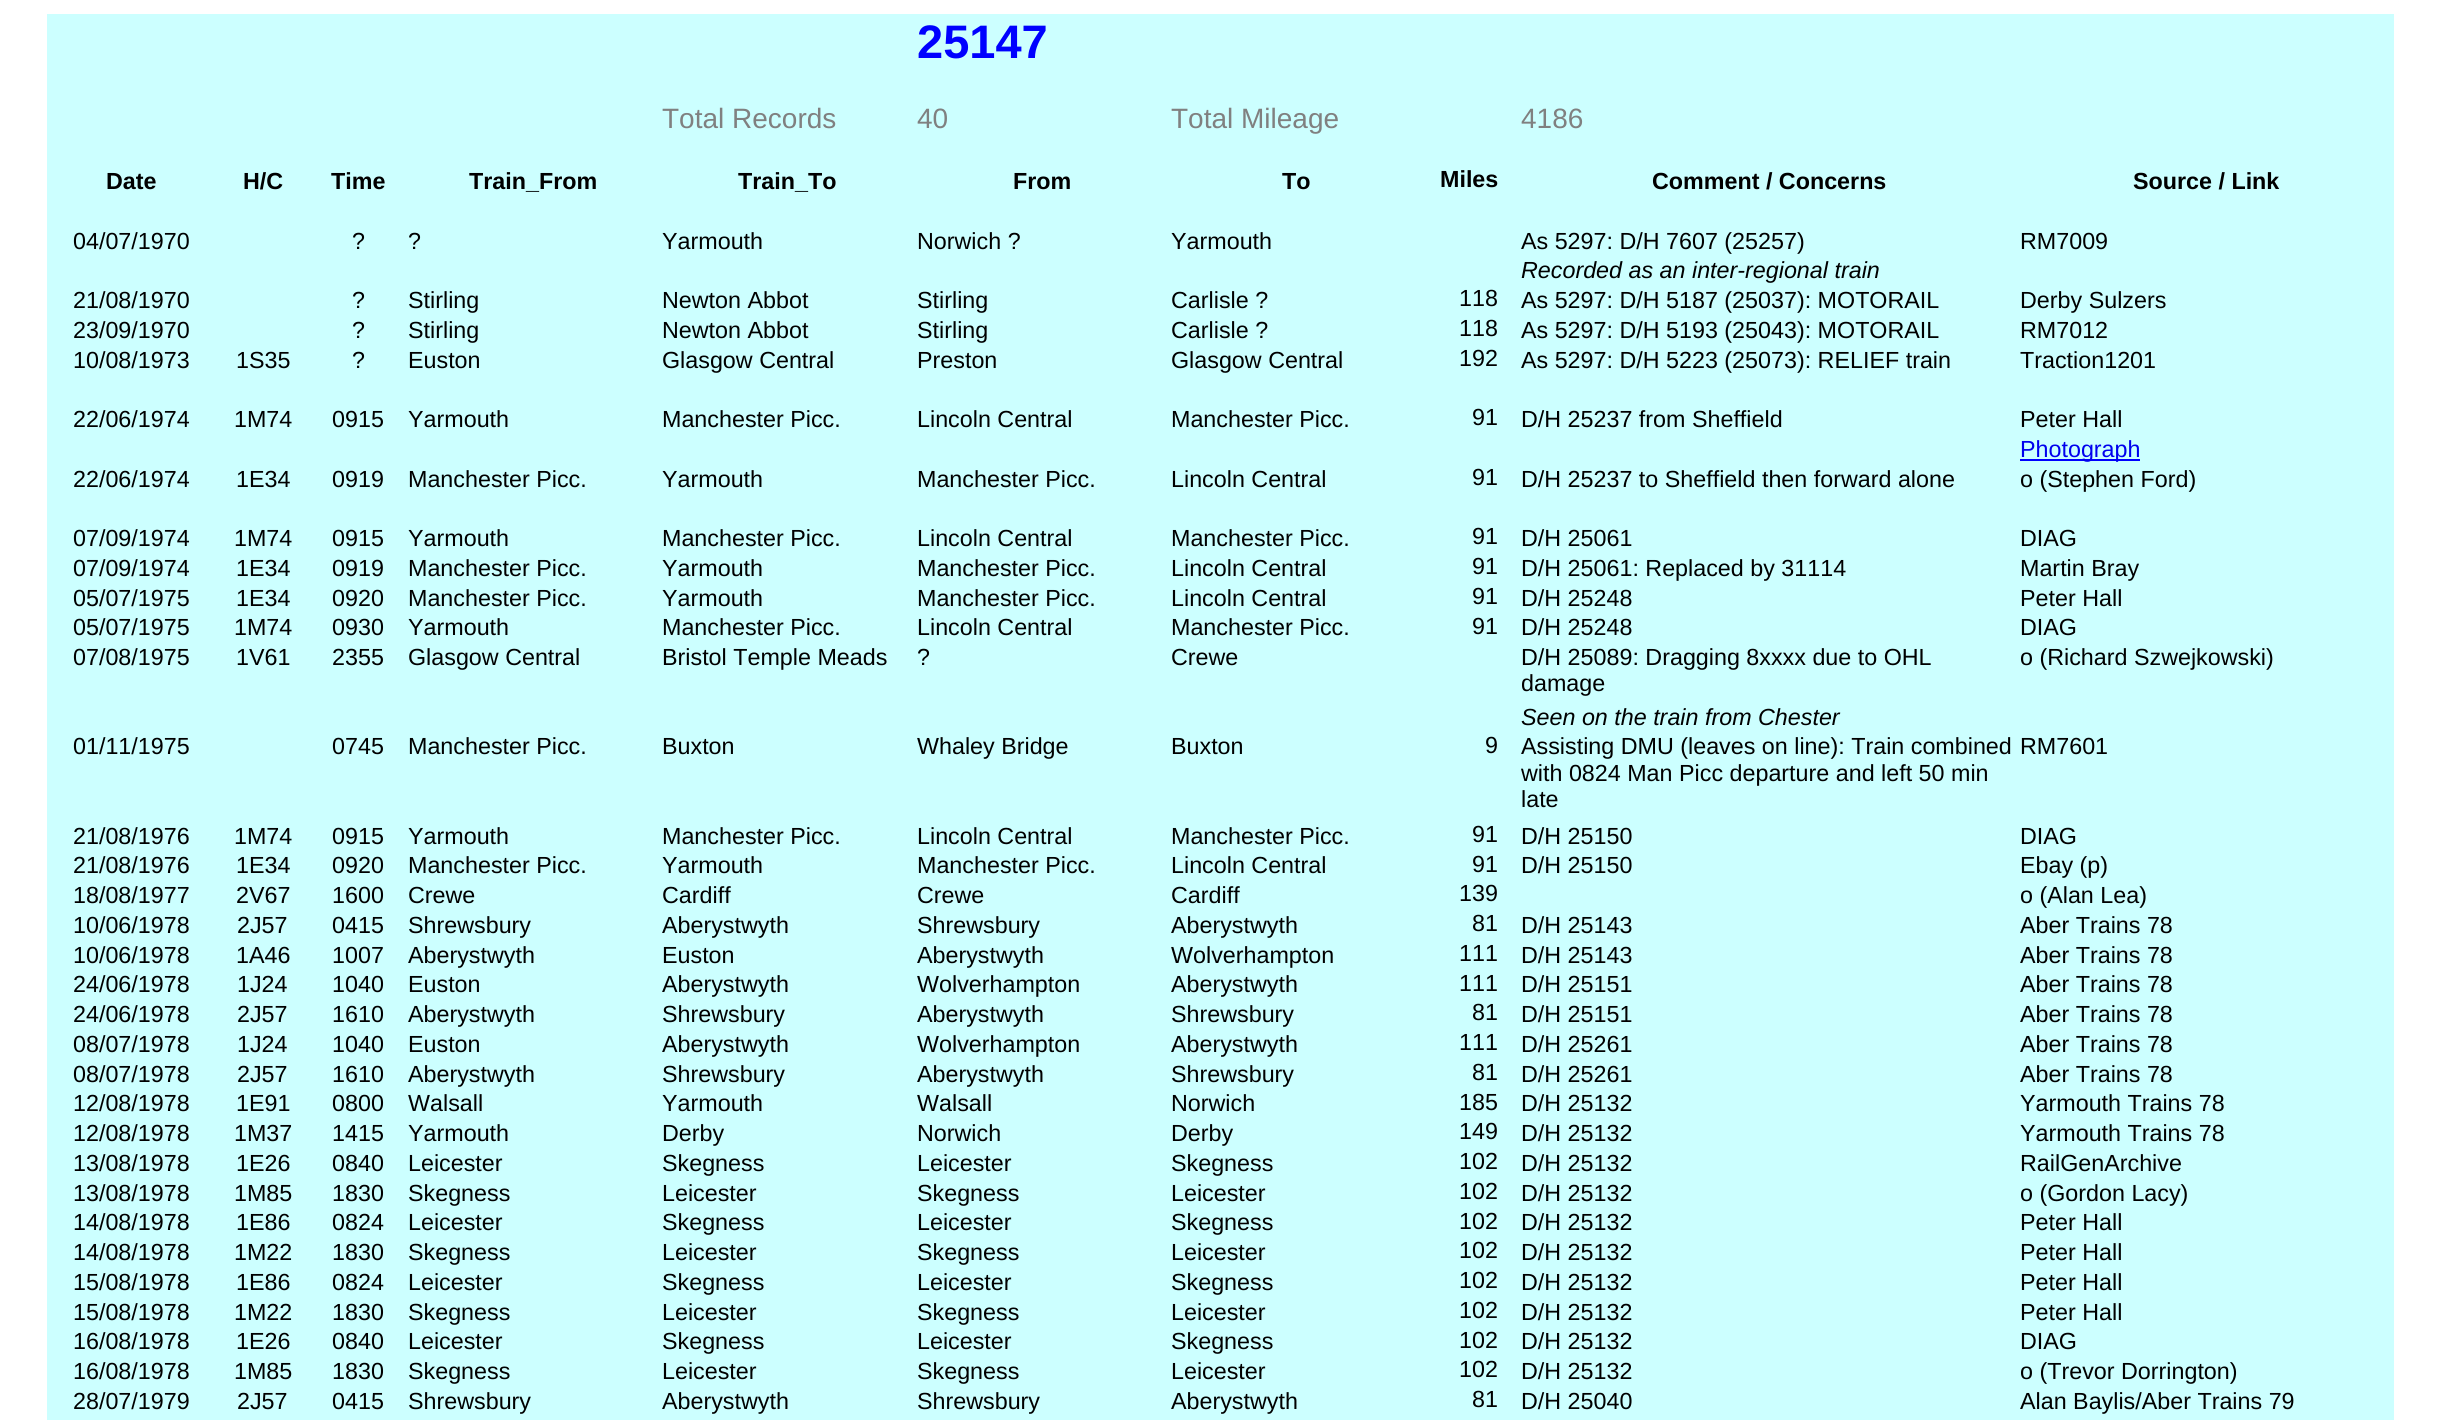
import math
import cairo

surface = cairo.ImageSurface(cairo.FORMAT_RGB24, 2440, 1420)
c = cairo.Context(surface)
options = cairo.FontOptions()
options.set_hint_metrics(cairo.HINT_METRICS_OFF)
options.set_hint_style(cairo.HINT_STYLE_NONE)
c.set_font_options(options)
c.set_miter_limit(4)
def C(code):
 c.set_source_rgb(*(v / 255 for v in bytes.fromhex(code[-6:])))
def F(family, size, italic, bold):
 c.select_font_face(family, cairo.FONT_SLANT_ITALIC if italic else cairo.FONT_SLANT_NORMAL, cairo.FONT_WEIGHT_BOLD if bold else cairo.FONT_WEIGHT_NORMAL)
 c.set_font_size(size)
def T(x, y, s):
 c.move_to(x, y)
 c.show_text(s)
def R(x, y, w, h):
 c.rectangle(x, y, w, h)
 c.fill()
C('ffffff')
c.paint()
C('ccffff')
R(47,14,2347,1406)
F('Liberation Sans',47,0,1)
C('0000ff')
T(917,58,'25147')
F('Liberation Sans',28,0,0)
C('808080')
T(662,128,'Total Records')
T(917,128,'40')
T(1171,128,'Total Mileage')
T(1521,128,'4186')
F('Liberation Sans',23.3,0,1)
C('000000')
T(106,189,'Date')
T(243,189,'H/C')
T(331,189,'Time')
T(469,189,'Train_From')
T(738,189,'Train_To')
T(1013,189,'From')
T(1282,189,'To')
T(1440,187,'Miles')
T(1652,189,'Comment / Concerns')
T(2133,189,'Source / Link')
F('Liberation Sans',23.3,0,0)
T(73,249,'04/07/1970')
T(352,249,'?')
T(408,249,'?')
T(662,249,'Yarmouth')
T(917,249,'Norwich ?')
T(1171,249,'Yarmouth')
T(1521,249,'As 5297: D/H 7607 (25257)')
T(2020,249,'RM7009')
F('Liberation Sans',23.3,1,0)
T(1521,278,'Recorded as an inter-regional train')
F('Liberation Sans',23.3,0,0)
T(73,308,'21/08/1970')
T(352,308,'?')
T(408,308,'Stirling')
T(662,308,'Newton Abbot')
T(917,308,'Stirling')
T(1171,308,'Carlisle ?')
T(1459,306,'118')
T(1521,308,'As 5297: D/H 5187 (25037): MOTORAIL')
T(2020,308,'Derby Sulzers')
T(73,338,'23/09/1970')
T(352,338,'?')
T(408,338,'Stirling')
T(662,338,'Newton Abbot')
T(917,338,'Stirling')
T(1171,338,'Carlisle ?')
T(1459,336,'118')
T(1521,338,'As 5297: D/H 5193 (25043): MOTORAIL')
T(2020,338,'RM7012')
T(73,368,'10/08/1973')
T(236,368,'1S35')
T(352,368,'?')
T(408,368,'Euston')
T(662,368,'Glasgow Central')
T(917,368,'Preston')
T(1171,368,'Glasgow Central')
T(1459,366,'192')
T(1521,368,'As 5297: D/H 5223 (25073): RELIEF train')
T(2020,368,'Traction1201')
T(73,427,'22/06/1974')
T(234,427,'1M74')
T(332,427,'0915')
T(408,427,'Yarmouth')
T(662,427,'Manchester Picc.')
T(917,427,'Lincoln Central')
T(1171,427,'Manchester Picc.')
T(1472,425,'91')
T(1521,427,'D/H 25237 from Sheffield')
T(2020,427,'Peter Hall')
C('0000ff')
R(2020,459,120,2)
C('0000ee')
T(2020,457,'Photograph')
C('000000')
T(73,487,'22/06/1974')
T(236,487,'1E34')
T(332,487,'0919')
T(408,487,'Manchester Picc.')
T(662,487,'Yarmouth')
T(917,487,'Manchester Picc.')
T(1171,487,'Lincoln Central')
T(1472,485,'91')
T(1521,487,'D/H 25237 to Sheffield then forward alone')
T(2020,487,'o (Stephen Ford)')
T(73,546,'07/09/1974')
T(234,546,'1M74')
T(332,546,'0915')
T(408,546,'Yarmouth')
T(662,546,'Manchester Picc.')
T(917,546,'Lincoln Central')
T(1171,546,'Manchester Picc.')
T(1472,544,'91')
T(1521,546,'D/H 25061')
T(2020,546,'DIAG')
T(73,576,'07/09/1974')
T(236,576,'1E34')
T(332,576,'0919')
T(408,576,'Manchester Picc.')
T(662,576,'Yarmouth')
T(917,576,'Manchester Picc.')
T(1171,576,'Lincoln Central')
T(1472,574,'91')
T(1521,576,'D/H 25061: Replaced by 31114')
T(2020,576,'Martin Bray')
T(73,606,'05/07/1975')
T(236,606,'1E34')
T(332,606,'0920')
T(408,606,'Manchester Picc.')
T(662,606,'Yarmouth')
T(917,606,'Manchester Picc.')
T(1171,606,'Lincoln Central')
T(1472,604,'91')
T(1521,606,'D/H 25248')
T(2020,606,'Peter Hall')
T(73,635,'05/07/1975')
T(234,635,'1M74')
T(332,635,'0930')
T(408,635,'Yarmouth')
T(662,635,'Manchester Picc.')
T(917,635,'Lincoln Central')
T(1171,635,'Manchester Picc.')
T(1472,634,'91')
T(1521,635,'D/H 25248')
T(2020,635,'DIAG')
T(73,665,'07/08/1975')
T(236,665,'1V61')
T(332,665,'2355')
T(408,665,'Glasgow Central')
T(662,665,'Bristol Temple Meads')
T(917,665,'?')
T(1171,665,'Crewe')
T(1521,665,'D/H 25089: Dragging 8xxxx due to OHL')
T(1521,691,'damage')
T(2020,665,'o (Richard Szwejkowski)')
F('Liberation Sans',23.3,1,0)
T(1521,725,'Seen on the train from Chester')
F('Liberation Sans',23.3,0,0)
T(73,754,'01/11/1975')
T(332,754,'0745')
T(408,754,'Manchester Picc.')
T(662,754,'Buxton')
T(917,754,'Whaley Bridge')
T(1171,754,'Buxton')
T(1485,753,'9')
T(1521,754,'Assisting DMU (leaves on line): Train combined')
T(1521,781,'with 0824 Man Picc departure and left 50 min')
T(1521,807,'late')
T(2020,754,'RM7601')
T(73,844,'21/08/1976')
T(234,844,'1M74')
T(332,844,'0915')
T(408,844,'Yarmouth')
T(662,844,'Manchester Picc.')
T(917,844,'Lincoln Central')
T(1171,844,'Manchester Picc.')
T(1472,842,'91')
T(1521,844,'D/H 25150')
T(2020,844,'DIAG')
T(73,873,'21/08/1976')
T(236,873,'1E34')
T(332,873,'0920')
T(408,873,'Manchester Picc.')
T(662,873,'Yarmouth')
T(917,873,'Manchester Picc.')
T(1171,873,'Lincoln Central')
T(1472,872,'91')
T(1521,873,'D/H 25150')
T(2020,873,'Ebay (p)')
T(73,903,'18/08/1977')
T(236,903,'2V67')
T(332,903,'1600')
T(408,903,'Crewe')
T(662,903,'Cardiff')
T(917,903,'Crewe')
T(1171,903,'Cardiff')
T(1459,901,'139')
T(2020,903,'o (Alan Lea)')
T(73,933,'10/06/1978')
T(237,933,'2J57')
T(332,933,'0415')
T(408,933,'Shrewsbury')
T(662,933,'Aberystwyth')
T(917,933,'Shrewsbury')
T(1171,933,'Aberystwyth')
T(1472,931,'81')
T(1521,933,'D/H 25143')
T(2020,933,'Aber Trains 78')
T(73,963,'10/06/1978')
T(236,963,'1A46')
T(332,963,'1007')
T(408,963,'Aberystwyth')
T(662,963,'Euston')
T(917,963,'Aberystwyth')
T(1171,963,'Wolverhampton')
T(1459,961,'111')
T(1521,963,'D/H 25143')
T(2020,963,'Aber Trains 78')
T(73,992,'24/06/1978')
T(237,992,'1J24')
T(332,992,'1040')
T(408,992,'Euston')
T(662,992,'Aberystwyth')
T(917,992,'Wolverhampton')
T(1171,992,'Aberystwyth')
T(1459,991,'111')
T(1521,992,'D/H 25151')
T(2020,992,'Aber Trains 78')
T(73,1022,'24/06/1978')
T(237,1022,'2J57')
T(332,1022,'1610')
T(408,1022,'Aberystwyth')
T(662,1022,'Shrewsbury')
T(917,1022,'Aberystwyth')
T(1171,1022,'Shrewsbury')
T(1472,1020,'81')
T(1521,1022,'D/H 25151')
T(2020,1022,'Aber Trains 78')
T(73,1052,'08/07/1978')
T(237,1052,'1J24')
T(332,1052,'1040')
T(408,1052,'Euston')
T(662,1052,'Aberystwyth')
T(917,1052,'Wolverhampton')
T(1171,1052,'Aberystwyth')
T(1459,1050,'111')
T(1521,1052,'D/H 25261')
T(2020,1052,'Aber Trains 78')
T(73,1082,'08/07/1978')
T(237,1082,'2J57')
T(332,1082,'1610')
T(408,1082,'Aberystwyth')
T(662,1082,'Shrewsbury')
T(917,1082,'Aberystwyth')
T(1171,1082,'Shrewsbury')
T(1472,1080,'81')
T(1521,1082,'D/H 25261')
T(2020,1082,'Aber Trains 78')
T(73,1111,'12/08/1978')
T(236,1111,'1E91')
T(332,1111,'0800')
T(408,1111,'Walsall')
T(662,1111,'Yarmouth')
T(917,1111,'Walsall')
T(1171,1111,'Norwich')
T(1459,1110,'185')
T(1521,1111,'D/H 25132')
T(2020,1111,'Yarmouth Trains 78')
T(73,1141,'12/08/1978')
T(234,1141,'1M37')
T(332,1141,'1415')
T(408,1141,'Yarmouth')
T(662,1141,'Derby')
T(917,1141,'Norwich')
T(1171,1141,'Derby')
T(1459,1139,'149')
T(1521,1141,'D/H 25132')
T(2020,1141,'Yarmouth Trains 78')
T(73,1171,'13/08/1978')
T(236,1171,'1E26')
T(332,1171,'0840')
T(408,1171,'Leicester')
T(662,1171,'Skegness')
T(917,1171,'Leicester')
T(1171,1171,'Skegness')
T(1459,1169,'102')
T(1521,1171,'D/H 25132')
T(2020,1171,'RailGenArchive')
T(73,1201,'13/08/1978')
T(234,1201,'1M85')
T(332,1201,'1830')
T(408,1201,'Skegness')
T(662,1201,'Leicester')
T(917,1201,'Skegness')
T(1171,1201,'Leicester')
T(1459,1199,'102')
T(1521,1201,'D/H 25132')
T(2020,1201,'o (Gordon Lacy)')
T(73,1230,'14/08/1978')
T(236,1230,'1E86')
T(332,1230,'0824')
T(408,1230,'Leicester')
T(662,1230,'Skegness')
T(917,1230,'Leicester')
T(1171,1230,'Skegness')
T(1459,1229,'102')
T(1521,1230,'D/H 25132')
T(2020,1230,'Peter Hall')
T(73,1260,'14/08/1978')
T(234,1260,'1M22')
T(332,1260,'1830')
T(408,1260,'Skegness')
T(662,1260,'Leicester')
T(917,1260,'Skegness')
T(1171,1260,'Leicester')
T(1459,1258,'102')
T(1521,1260,'D/H 25132')
T(2020,1260,'Peter Hall')
T(73,1290,'15/08/1978')
T(236,1290,'1E86')
T(332,1290,'0824')
T(408,1290,'Leicester')
T(662,1290,'Skegness')
T(917,1290,'Leicester')
T(1171,1290,'Skegness')
T(1459,1288,'102')
T(1521,1290,'D/H 25132')
T(2020,1290,'Peter Hall')
T(73,1320,'15/08/1978')
T(234,1320,'1M22')
T(332,1320,'1830')
T(408,1320,'Skegness')
T(662,1320,'Leicester')
T(917,1320,'Skegness')
T(1171,1320,'Leicester')
T(1459,1318,'102')
T(1521,1320,'D/H 25132')
T(2020,1320,'Peter Hall')
T(73,1349,'16/08/1978')
T(236,1349,'1E26')
T(332,1349,'0840')
T(408,1349,'Leicester')
T(662,1349,'Skegness')
T(917,1349,'Leicester')
T(1171,1349,'Skegness')
T(1459,1348,'102')
T(1521,1349,'D/H 25132')
T(2020,1349,'DIAG')
T(73,1379,'16/08/1978')
T(234,1379,'1M85')
T(332,1379,'1830')
T(408,1379,'Skegness')
T(662,1379,'Leicester')
T(917,1379,'Skegness')
T(1171,1379,'Leicester')
T(1459,1377,'102')
T(1521,1379,'D/H 25132')
T(2020,1379,'o (Trevor Dorrington)')
T(73,1409,'28/07/1979')
T(237,1409,'2J57')
T(332,1409,'0415')
T(408,1409,'Shrewsbury')
T(662,1409,'Aberystwyth')
T(917,1409,'Shrewsbury')
T(1171,1409,'Aberystwyth')
T(1472,1407,'81')
T(1521,1409,'D/H 25040')
T(2020,1409,'Alan Baylis/Aber Trains 79')
surface.write_to_png('o.png')
